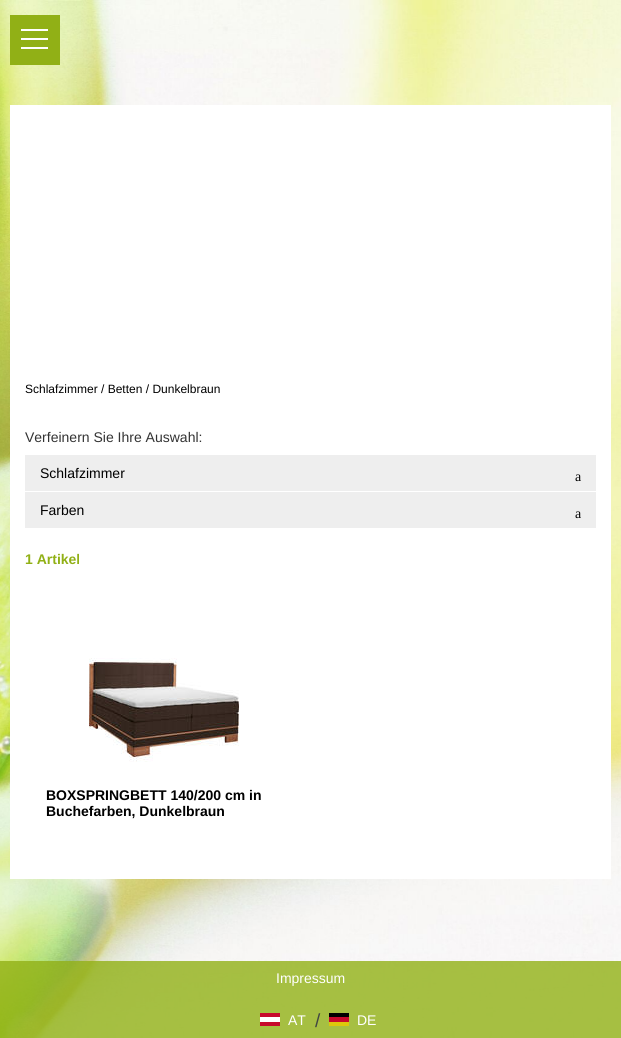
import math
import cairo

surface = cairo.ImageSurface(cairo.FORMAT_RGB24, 621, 1038)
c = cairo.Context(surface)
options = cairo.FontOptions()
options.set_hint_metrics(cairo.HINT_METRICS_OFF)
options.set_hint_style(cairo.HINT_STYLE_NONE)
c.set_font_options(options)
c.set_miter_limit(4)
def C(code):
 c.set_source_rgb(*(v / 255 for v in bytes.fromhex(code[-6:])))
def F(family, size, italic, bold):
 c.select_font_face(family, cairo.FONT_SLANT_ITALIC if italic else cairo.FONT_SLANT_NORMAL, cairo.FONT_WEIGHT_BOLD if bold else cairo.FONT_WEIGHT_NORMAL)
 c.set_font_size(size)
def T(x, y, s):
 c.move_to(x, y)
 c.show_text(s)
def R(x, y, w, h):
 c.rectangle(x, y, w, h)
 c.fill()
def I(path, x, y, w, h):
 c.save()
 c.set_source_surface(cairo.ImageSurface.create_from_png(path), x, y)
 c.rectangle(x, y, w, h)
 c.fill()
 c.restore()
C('ffffff')
c.paint()
I('1.png',0,0,621,1038)
C('91b016')
R(10,15,50,50)
C('ffffff')
R(21,29,27,2)
R(21,38,27,2)
R(21,47,27,2)
R(10,105,601,774)
F('Liberation Sans',12,0,0)
C('000000')
T(25,393,'Schlafzimmer / Betten / Dunkelbraun')
F('Liberation Sans',14,0,0)
C('333333')
T(25,442,'Verfeinern Sie Ihre Auswahl:')
C('eeeeee')
R(25,455,571,36)
C('000000')
T(40,478,'Schlafzimmer')
F('Liberation Serif',14,0,0)
T(575,481,'a')
C('eeeeee')
R(25,492,571,36)
F('Liberation Sans',14,0,0)
C('000000')
T(40,515,'Farben')
F('Liberation Serif',14,0,0)
T(575,518,'a')
F('Liberation Sans',14,0,1)
C('91b016')
T(25,564,'1 Artikel')
I('2.png',89,658,150,104)
C('000000')
T(46,800,'BOXSPRINGBETT 140/200 cm in')
T(46,816,'Buchefarben, Dunkelbraun')
c.set_source_rgba(0.569,0.69,0.086,0.8)
R(0,961,621,77)
F('Liberation Sans',14,0,0)
C('ffffff')
T(276,983,'Impressum')
C('c7092c')
R(260,1013,20,4)
C('ffffff')
R(260,1017,20,5)
C('c7092c')
R(260,1022,20,4)
C('ffffff')
T(288,1025,'AT')
F('Liberation Sans',19,0,0)
C('414742')
T(315,1027,'/')
C('000000')
R(329,1013,20,4)
C('c7092c')
R(329,1017,20,5)
C('ddc70b')
R(329,1022,20,4)
F('Liberation Sans',14,0,0)
C('ffffff')
T(357,1025,'DE')
surface.write_to_png('o.png')
